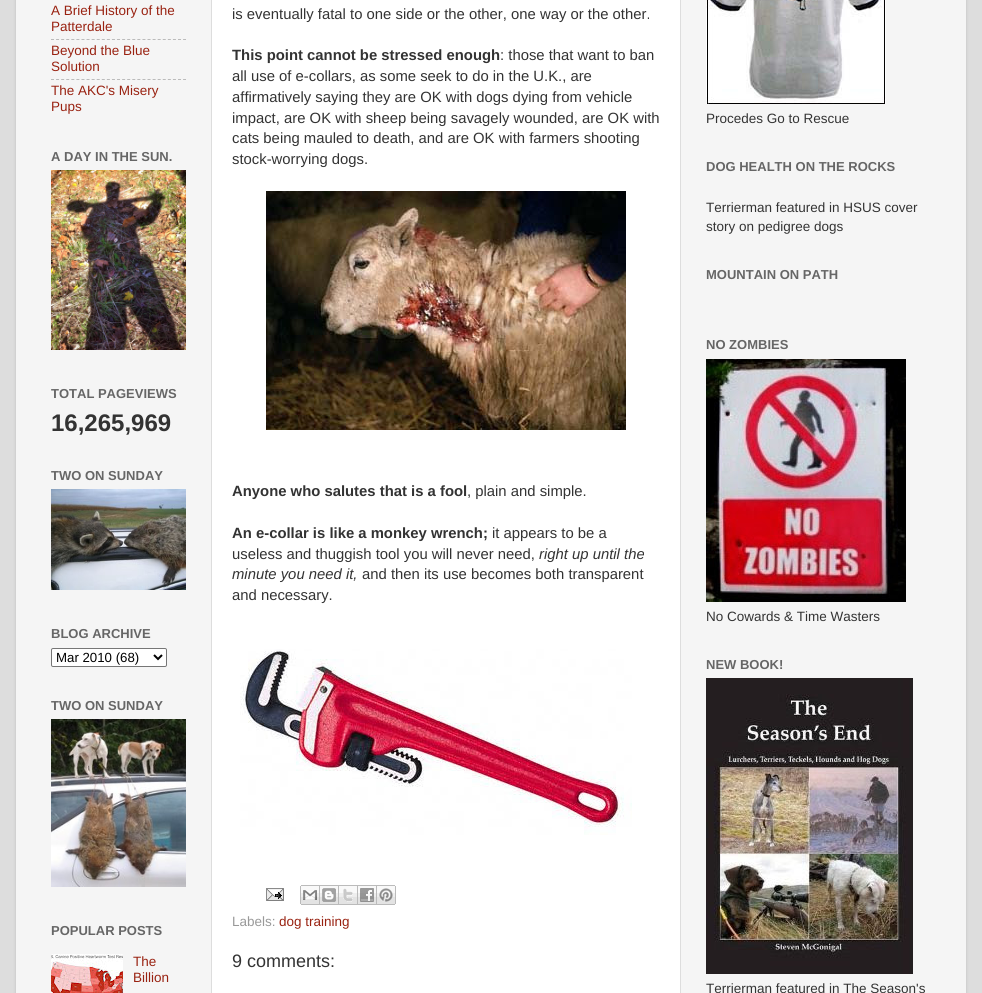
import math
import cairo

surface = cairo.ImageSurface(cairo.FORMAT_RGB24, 982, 993)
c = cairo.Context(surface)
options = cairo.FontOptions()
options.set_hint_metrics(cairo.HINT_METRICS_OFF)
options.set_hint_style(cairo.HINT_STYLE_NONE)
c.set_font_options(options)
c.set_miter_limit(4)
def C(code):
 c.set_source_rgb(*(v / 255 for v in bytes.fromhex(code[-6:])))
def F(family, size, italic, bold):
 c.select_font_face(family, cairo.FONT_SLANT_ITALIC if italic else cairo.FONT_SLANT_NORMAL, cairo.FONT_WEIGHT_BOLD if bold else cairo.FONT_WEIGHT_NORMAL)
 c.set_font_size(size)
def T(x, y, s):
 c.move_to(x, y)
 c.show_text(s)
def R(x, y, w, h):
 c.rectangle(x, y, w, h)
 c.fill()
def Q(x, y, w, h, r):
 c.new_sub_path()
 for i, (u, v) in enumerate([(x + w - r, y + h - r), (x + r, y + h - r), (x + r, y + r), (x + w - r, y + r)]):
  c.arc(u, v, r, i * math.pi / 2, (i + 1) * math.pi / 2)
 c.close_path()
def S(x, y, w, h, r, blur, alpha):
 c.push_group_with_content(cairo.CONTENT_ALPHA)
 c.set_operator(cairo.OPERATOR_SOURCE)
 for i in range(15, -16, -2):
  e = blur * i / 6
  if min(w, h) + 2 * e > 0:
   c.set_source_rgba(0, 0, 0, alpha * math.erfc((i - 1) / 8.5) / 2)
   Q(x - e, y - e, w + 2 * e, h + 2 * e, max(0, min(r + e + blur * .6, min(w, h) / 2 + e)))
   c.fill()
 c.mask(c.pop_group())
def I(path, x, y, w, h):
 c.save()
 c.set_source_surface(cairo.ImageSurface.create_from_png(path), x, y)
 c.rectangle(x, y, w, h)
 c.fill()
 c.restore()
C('dddddd')
c.paint()
C('000000')
S(16,-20,950,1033,15,1.5,.15)
C('f5f5f5')
R(16,0,950,993)
F('Liberation Sans',13.5,0,0)
C('992211')
T(51,15,'A Brief History of the')
T(51,31,'Patterdale')
c.new_path()
c.move_to(51,39.5)
c.line_to(186,39.5)
C('bbbbbb')
c.set_line_width(1)
c.set_dash([3,2.08])
c.stroke()
C('992211')
T(51,55,'Beyond the Blue')
T(51,71,'Solution')
c.new_path()
c.move_to(51,79.5)
c.line_to(186,79.5)
C('bbbbbb')
c.stroke()
C('992211')
T(51,95,'The AKC\'s Misery')
T(51,111,'Pups')
F('Liberation Sans',13,0,1)
C('666666')
T(51,161,'A DAY IN THE SUN.')
I('1.png',51,170,135,180)
T(51,398,'TOTAL PAGEVIEWS')
F('Liberation Sans',24,0,1)
C('333333')
T(51,431,'16,265,969')
F('Liberation Sans',13,0,1)
C('666666')
T(51,480,'TWO ON SUNDAY')
I('2.png',51,489,135,101)
T(51,638,'BLOG ARCHIVE')
C('ffffff')
Q(51.5,648.5,115,18,1.5)
c.fill_preserve()
C('767676')
c.set_dash([])
c.stroke()
c.new_path()
c.move_to(154,655)
c.line_to(158,659)
c.line_to(162,655)
C('000000')
c.set_line_width(2)
c.stroke()
F('Liberation Sans',13.25,0,0)
T(56,662,'Mar 2010 (68)')
F('Liberation Sans',13,0,1)
C('666666')
T(51,710,'TWO ON SUNDAY')
I('3.png',51,719,135,168)
T(51,935,'POPULAR POSTS')
I('4.png',51,954,72,39)
F('Liberation Sans',13.5,0,0)
C('992211')
T(133,966,'The')
T(133,982,'Billion')
C('ffffff')
c.rectangle(211.5,-.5,469,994)
c.fill_preserve()
C('dddddd')
c.set_line_width(1)
c.stroke()
F('Liberation Sans',14.85,0,0)
C('333333')
T(232,19,'is eventually fatal to one side or the other, one way or the other.')
F('Liberation Sans',14.85,0,1)
T(232,60,'This point cannot be stressed enough')
F('Liberation Sans',14.85,0,0)
T(500,60,': those that want to ban')
T(232,81,'all use of e-collars, as some seek to do in the U.K., are')
T(232,102,'affirmatively saying they are OK with dogs dying from vehicle')
T(232,123,'impact, are OK with sheep being savagely wounded, are OK with')
T(232,143,'cats being mauled to death, and are OK with farmers shooting')
T(232,164,'stock-worrying dogs.')
I('5.png',266,191,360,239)
F('Liberation Sans',14.85,0,1)
T(232,496,'Anyone who salutes that is a fool')
F('Liberation Sans',14.85,0,0)
T(467,496,', plain and simple.')
F('Liberation Sans',14.85,0,1)
T(232,538,'An e-collar is like a monkey wrench;')
F('Liberation Sans',14.85,0,0)
T(492,538,'it appears to be a')
T(232,559,'useless and thuggish tool you will never need,')
F('Liberation Sans',14.85,1,0)
T(539,559,'right up until the')
T(232,579,'minute you need it,')
F('Liberation Sans',14.85,0,0)
T(362,579,'and then its use becomes both transparent')
T(232,600,'and necessary.')
I('6.png',240,649,392,186)
I('7.png',266,888,18,13)
I('8.png',300,885,20,20)
I('9.png',320,885,19,20)
I('10.png',339,885,19,20)
I('11.png',358,885,19,20)
I('12.png',377,885,19,20)
F('Liberation Sans',13.5,0,0)
C('999999')
T(232,926,'Labels:')
C('992211')
T(279,926,'dog training')
F('Liberation Sans',18,0,0)
C('333333')
T(232,967,'9 comments:')
I('13.png',706,0,180,104)
F('Liberation Sans',13.5,0,0)
T(706,123,'Procedes Go to Rescue')
F('Liberation Sans',13,0,1)
C('666666')
T(706,171,'DOG HEALTH ON THE ROCKS')
F('Liberation Sans',13.5,0,0)
C('333333')
T(706,212,'Terrierman featured in HSUS cover')
T(706,231,'story on pedigree dogs')
F('Liberation Sans',13,0,1)
C('666666')
T(706,279,'MOUNTAIN ON PATH')
T(706,349,'NO ZOMBIES')
I('14.png',706,359,200,243)
F('Liberation Sans',13.5,0,0)
C('333333')
T(706,621,'No Cowards & Time Wasters')
F('Liberation Sans',13,0,1)
C('666666')
T(706,669,'NEW BOOK!')
I('15.png',706,678,207,296)
F('Liberation Sans',13.5,0,0)
C('333333')
T(706,993,'Terrierman featured in The Season\'s')
surface.write_to_png('o.png')
